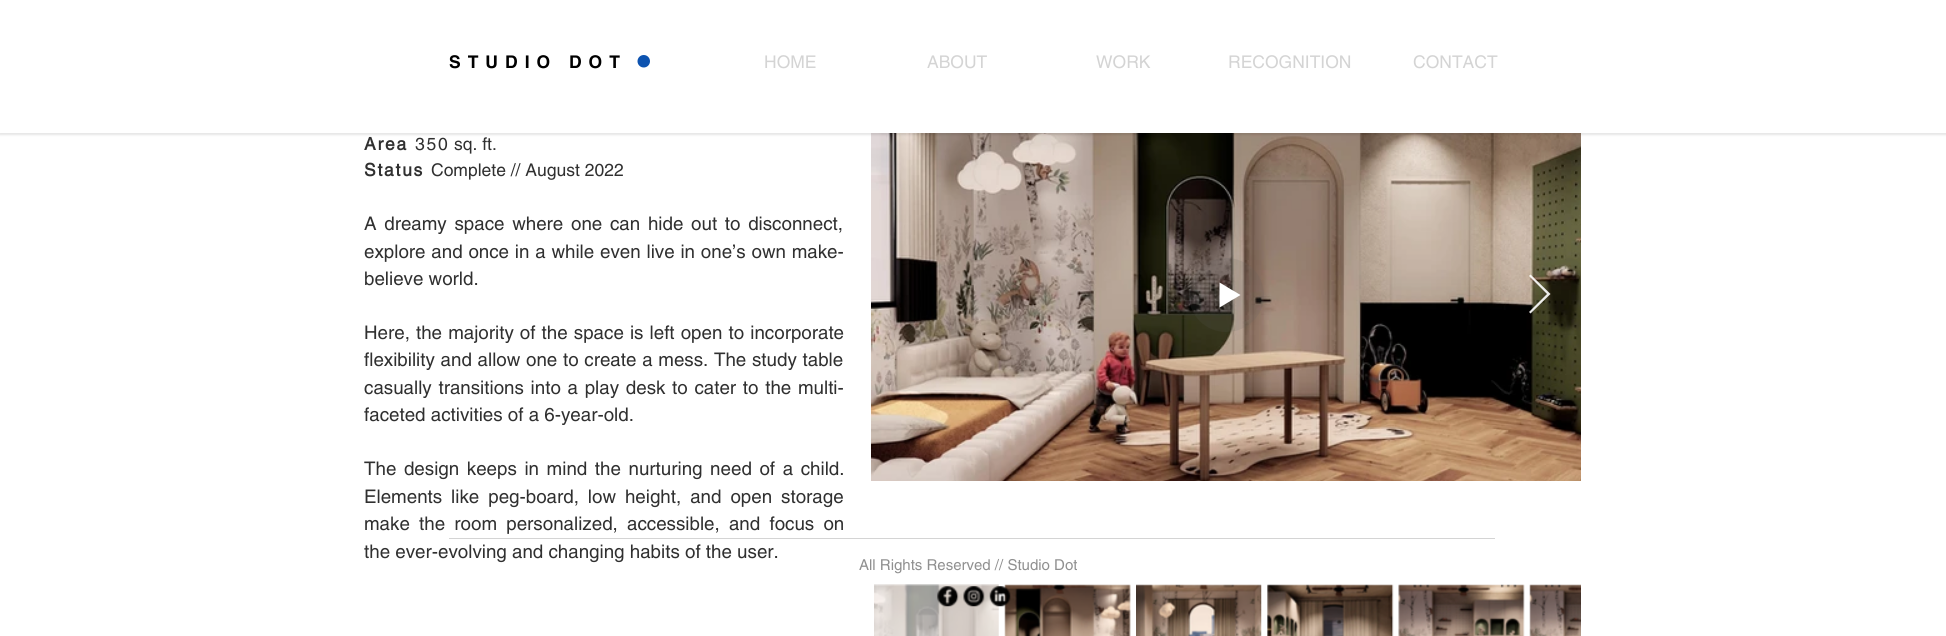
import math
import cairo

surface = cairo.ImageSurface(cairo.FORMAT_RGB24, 1946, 636)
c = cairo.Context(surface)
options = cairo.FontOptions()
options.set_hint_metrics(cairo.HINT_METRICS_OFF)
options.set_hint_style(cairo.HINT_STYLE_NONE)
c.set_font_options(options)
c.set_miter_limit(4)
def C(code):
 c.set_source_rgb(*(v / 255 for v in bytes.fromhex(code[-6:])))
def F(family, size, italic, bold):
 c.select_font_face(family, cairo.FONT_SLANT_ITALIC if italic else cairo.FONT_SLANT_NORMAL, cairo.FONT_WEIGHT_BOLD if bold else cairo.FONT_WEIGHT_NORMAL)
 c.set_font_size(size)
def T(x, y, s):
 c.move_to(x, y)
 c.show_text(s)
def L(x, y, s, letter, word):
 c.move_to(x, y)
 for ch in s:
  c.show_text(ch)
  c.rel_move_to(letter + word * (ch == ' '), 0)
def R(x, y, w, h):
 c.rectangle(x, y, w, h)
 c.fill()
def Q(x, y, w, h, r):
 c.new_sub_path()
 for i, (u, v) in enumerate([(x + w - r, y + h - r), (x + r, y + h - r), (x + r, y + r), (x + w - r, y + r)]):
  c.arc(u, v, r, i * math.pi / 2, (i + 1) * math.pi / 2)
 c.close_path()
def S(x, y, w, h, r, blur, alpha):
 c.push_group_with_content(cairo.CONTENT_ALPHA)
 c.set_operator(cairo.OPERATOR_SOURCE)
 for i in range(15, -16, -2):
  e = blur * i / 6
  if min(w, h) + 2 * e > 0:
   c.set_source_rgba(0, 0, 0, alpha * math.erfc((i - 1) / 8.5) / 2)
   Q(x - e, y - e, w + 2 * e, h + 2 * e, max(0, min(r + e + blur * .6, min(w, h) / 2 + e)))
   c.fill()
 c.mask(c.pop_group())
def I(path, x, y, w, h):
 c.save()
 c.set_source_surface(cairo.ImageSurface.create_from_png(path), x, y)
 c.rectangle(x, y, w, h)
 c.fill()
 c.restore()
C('ffffff')
c.paint()
I('2.png',871,133,710,348)
C('000000')
S(-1,0,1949,135,0,1,.1)
C('ffffff')
R(0,0,1946,133)
F('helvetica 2',17.5,0,1)
C('000000')
L(449,68,'STUDIO DOT',7,0)
I('1.png',637,55,13,13)
F('helvetica',17.5,0,0)
C('d4d4d4')
T(764,68,'HOME')
T(927,68,'ABOUT')
T(1096,68,'WORK')
T(1228,68,'RECOGNITION')
T(1413,68,'CONTACT')
F('helvetica',17.5,0,1)
C('303030')
L(364,150,'Area',1.75,0)
F('helvetica',17.5,0,0)
L(415,150,'350',1.75,0)
T(454,150,'sq. ft.')
F('helvetica',17.5,0,1)
L(364,176,'Status',1.75,0)
F('helvetica',17.5,0,0)
T(431,176,'Complete // August 2022')
F('helvetica',18.75,0,0)
L(364,230,'A dreamy space where one can hide out to disconnect,',0,2.5)
L(364,258,'explore and once in a while even live in one’s own make-',0,.6)
T(364,285,'believe world.')
L(364,339,'Here, the majority of the space is left open to incorporate',0,.9)
L(364,366,'flexibility and allow one to create a mess. The study table',0,.5)
L(364,394,'casually transitions into a play desk to cater to the multi-',0,1.5)
T(364,421,'faceted activities of a 6-year-old.')
L(364,475,'The design keeps in mind the nurturing need of a child.',0,2.4)
L(364,503,'Elements like peg-board, low height, and open storage',0,3.75)
L(364,530,'make the room personalized, accessible, and focus on',0,4)
T(364,558,'the ever-evolving and changing habits of the user.')
c.set_source_rgba(0.376,0.376,0.376,0.14)
c.set_fill_rule(cairo.FILL_RULE_EVEN_ODD)
c.new_path()
c.move_to(1226,258)
c.curve_to(1247,258,1264,274,1264,295)
c.curve_to(1264,316,1247,332,1226,332)
c.curve_to(1206,332,1189,316,1189,295)
c.curve_to(1189,274,1206,258,1226,258)
c.close_path()
c.fill()
C('ffffff')
c.set_fill_rule(cairo.FILL_RULE_WINDING)
c.new_path()
c.move_to(1240.5,295)
c.line_to(1219.5,307.5)
c.line_to(1219.5,282.5)
c.close_path()
c.fill()
c.set_source_rgba(1,1,1,0.9)
c.new_path()
c.move_to(1529,276)
c.line_to(1530.5,274.5)
c.line_to(1550.5,294)
c.line_to(1530.5,313.5)
c.line_to(1529,312)
c.line_to(1547,294)
c.close_path()
c.fill()
I('3.png',874,584,125,52)
I('4.png',1004,584,127,52)
I('5.png',1136,584,126,52)
I('6.png',1267,584,127,52)
I('7.png',1398,584,127,52)
I('8.png',1529,584,52,52)
C('d4d4d4')
R(449,538,1046,1)
F('helvetica',15,0,0)
C('909090')
T(859,570,'All Rights Reserved // Studio Dot')
I('9.png',937,586,22,21)
I('10.png',963,586,22,21)
I('11.png',989,586,22,21)
surface.write_to_png('o.png')
